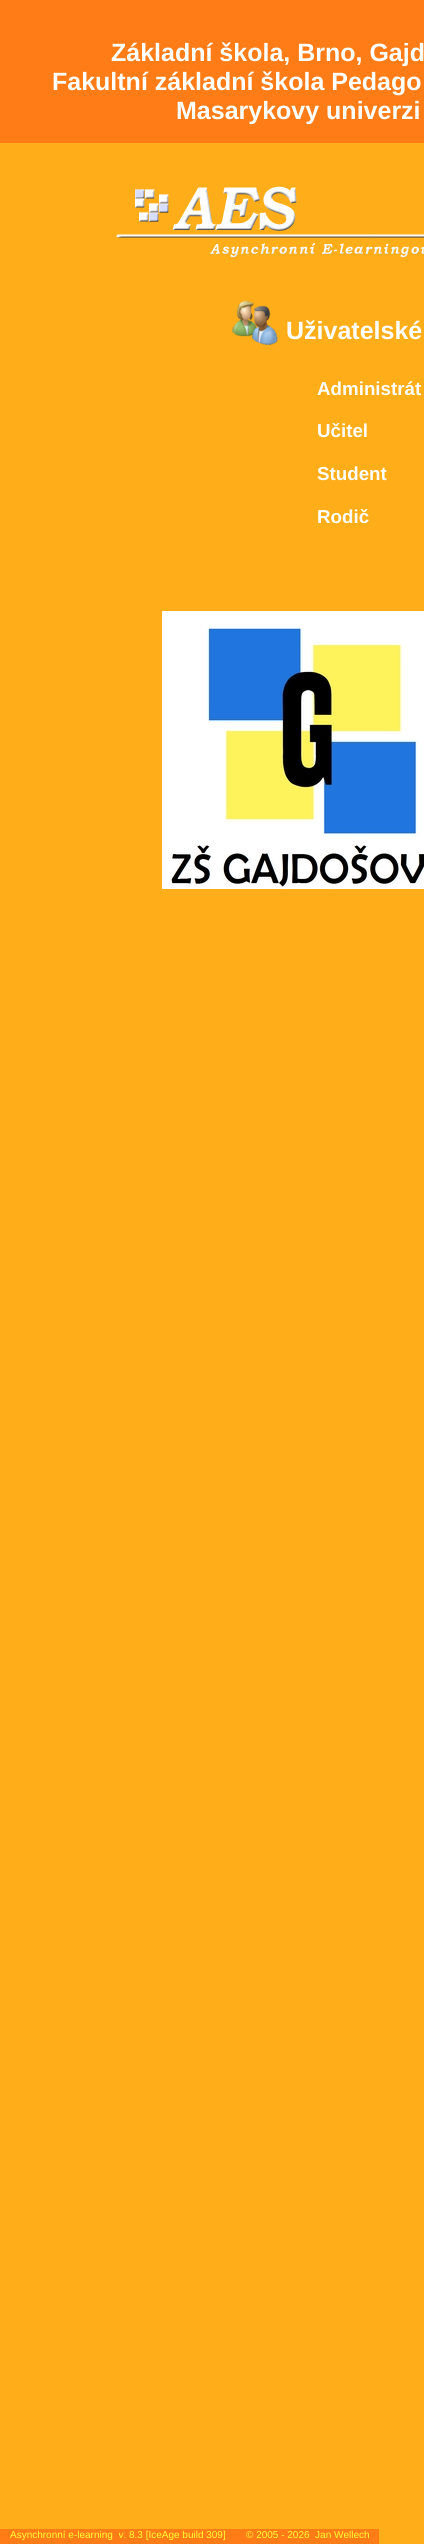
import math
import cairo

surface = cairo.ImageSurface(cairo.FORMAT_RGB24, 424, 2544)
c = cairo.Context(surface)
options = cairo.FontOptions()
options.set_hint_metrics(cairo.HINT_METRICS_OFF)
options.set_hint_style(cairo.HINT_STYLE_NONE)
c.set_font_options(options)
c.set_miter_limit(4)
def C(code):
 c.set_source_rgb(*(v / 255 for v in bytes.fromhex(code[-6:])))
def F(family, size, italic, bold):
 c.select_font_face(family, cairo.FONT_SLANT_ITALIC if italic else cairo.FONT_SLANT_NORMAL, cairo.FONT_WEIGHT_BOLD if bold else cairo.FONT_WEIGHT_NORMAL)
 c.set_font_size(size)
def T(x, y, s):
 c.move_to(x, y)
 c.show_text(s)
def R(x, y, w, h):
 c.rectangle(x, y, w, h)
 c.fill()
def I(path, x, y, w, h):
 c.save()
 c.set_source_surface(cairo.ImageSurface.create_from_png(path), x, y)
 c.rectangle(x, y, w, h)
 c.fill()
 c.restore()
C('ffad18')
c.paint()
C('ff7c17')
R(0,0,424,143)
F('Liberation Sans',25,0,1)
C('ffffff')
T(111,61,'Základní škola, Brno, Gajd')
T(52,90,'Fakultní základní škola Pedago')
T(176,119,'Masarykovy univerzi')
I('1.png',116,186,308,72)
I('2.png',232,300,46,45)
T(286,339,'Uživatelské')
F('Liberation Sans',18.75,0,1)
T(317,395,'Administrát')
T(317,437,'Učitel')
T(317,480,'Student')
T(317,523,'Rodič')
I('3.png',162,611,262,278)
C('ff7c17')
R(0,2529,379,15)
F('Liberation Sans',10,0,0)
C('ffff33')
T(10,2538,'Asynchronní e-learning  v. 8.3 [IceAge build 309]')
T(246,2538,'© 2005 - 2026  Jan Wellech')
surface.write_to_png('o.png')
